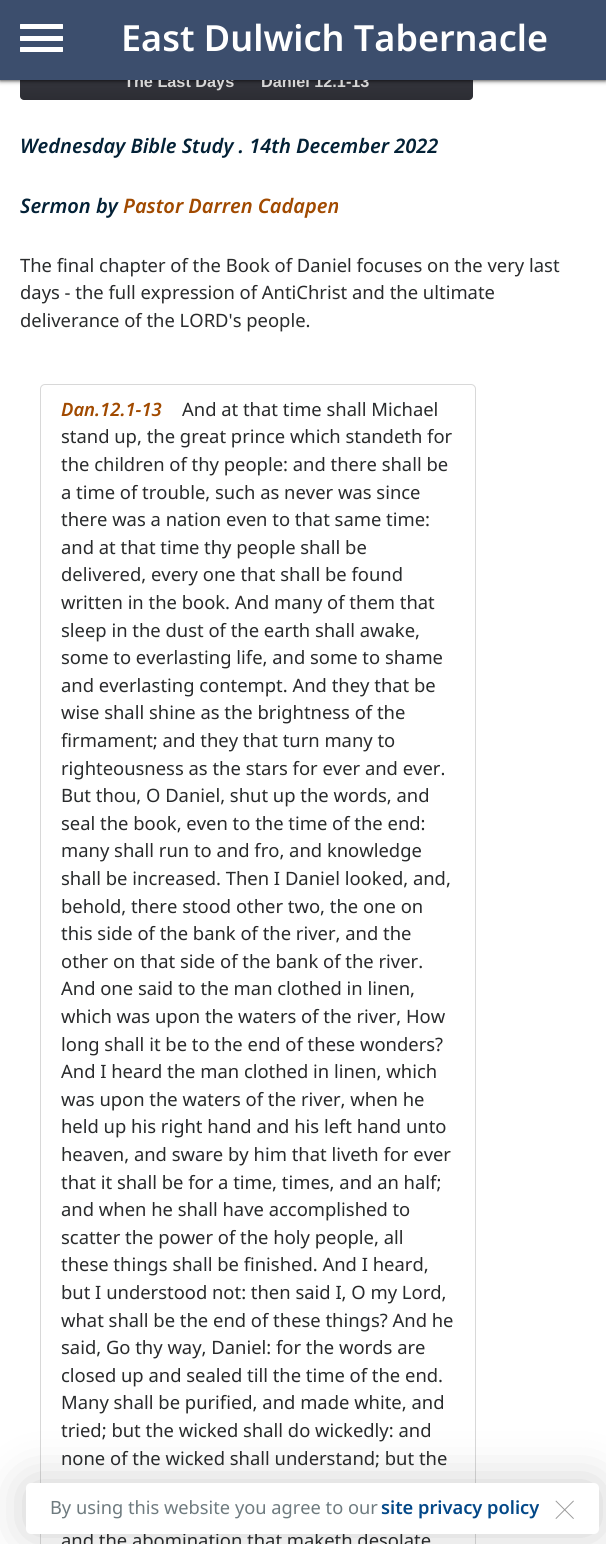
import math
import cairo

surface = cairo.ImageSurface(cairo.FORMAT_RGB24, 606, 1544)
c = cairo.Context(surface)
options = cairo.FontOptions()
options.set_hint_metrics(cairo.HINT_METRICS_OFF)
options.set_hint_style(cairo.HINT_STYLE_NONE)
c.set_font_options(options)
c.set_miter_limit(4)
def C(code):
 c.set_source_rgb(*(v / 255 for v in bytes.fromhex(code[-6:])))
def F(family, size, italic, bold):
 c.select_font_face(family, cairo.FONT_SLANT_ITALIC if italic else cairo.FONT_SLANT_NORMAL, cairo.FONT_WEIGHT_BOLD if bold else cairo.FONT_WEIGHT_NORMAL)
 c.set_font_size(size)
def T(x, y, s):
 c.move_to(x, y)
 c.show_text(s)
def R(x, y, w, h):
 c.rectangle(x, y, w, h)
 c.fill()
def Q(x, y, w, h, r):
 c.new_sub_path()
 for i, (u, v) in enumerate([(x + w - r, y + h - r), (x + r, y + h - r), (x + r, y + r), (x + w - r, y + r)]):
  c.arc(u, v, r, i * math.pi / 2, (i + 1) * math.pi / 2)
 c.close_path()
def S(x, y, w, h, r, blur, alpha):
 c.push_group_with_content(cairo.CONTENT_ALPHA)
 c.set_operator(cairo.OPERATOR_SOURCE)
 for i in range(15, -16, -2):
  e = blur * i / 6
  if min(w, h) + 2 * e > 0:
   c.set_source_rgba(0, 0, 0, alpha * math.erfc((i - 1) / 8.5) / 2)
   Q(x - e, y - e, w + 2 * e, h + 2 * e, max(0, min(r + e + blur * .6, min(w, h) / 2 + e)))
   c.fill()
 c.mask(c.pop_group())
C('ffffff')
c.paint()
gradient = cairo.LinearGradient(246,12,246,100)
gradient.add_color_stop_rgba(0,0.298,0.306,0.353,1)
gradient.add_color_stop_rgba(1,0.173,0.176,0.2,1)
c.set_source(gradient)
Q(20,13,453,87,4)
c.fill()
C('000000')
S(0,0,606,80,0,2.5,1)
F('Liberation Sans',16.25,0,1)
C('d6d6d6')
T(124,87,'The Last Days')
T(261,87,'Daniel 12.1-13')
C('3c4e6d')
R(0,0,606,80)
C('ffffff')
Q(20,24,43,5,.5)
c.fill()
Q(20,36,43,5,.5)
c.fill()
Q(20,47,43,5,.5)
c.fill()
F('Noto Sans SemiBold',36,0,0)
T(121,51,'East Dulwich Tabernacle')
F('Noto Sans SemiBold',20,1,0)
C('032136')
T(20,153,'Wednesday Bible Study . 14th December 2022')
T(20,213,'Sermon by')
C('a14a00')
T(123,213,'Pastor Darren Cadapen')
F('Noto Sans',18.4,0,0)
C('292b2c')
T(20,272,'The final chapter of the Book of Daniel focuses on the very last')
T(20,299,'days - the full expression of AntiChrist and the ultimate')
T(20,327,'deliverance of the LORD\'s people.')
Q(40.5,384.5,435,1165,4.5)
C('d8d8d8')
c.set_line_width(1)
c.stroke()
F('Noto Sans SemiBold',18.4,1,0)
C('a14a00')
T(61,416,'Dan.12.1-13')
F('Noto Sans',18.4,0,0)
C('292b2c')
T(182,416,'And at that time shall Michael')
T(61,443,'stand up, the great prince which standeth for')
T(61,471,'the children of thy people: and there shall be')
T(61,499,'a time of trouble, such as never was since')
T(61,526,'there was a nation even to that same time:')
T(61,554,'and at that time thy people shall be')
T(61,581,'delivered, every one that shall be found')
T(61,609,'written in the book. And many of them that')
T(61,637,'sleep in the dust of the earth shall awake,')
T(61,664,'some to everlasting life, and some to shame')
T(61,692,'and everlasting contempt. And they that be')
T(61,719,'wise shall shine as the brightness of the')
T(61,747,'firmament; and they that turn many to')
T(61,775,'righteousness as the stars for ever and ever.')
T(61,802,'But thou, O Daniel, shut up the words, and')
T(61,830,'seal the book, even to the time of the end:')
T(61,857,'many shall run to and fro, and knowledge')
T(61,885,'shall be increased. Then I Daniel looked, and,')
T(61,913,'behold, there stood other two, the one on')
T(61,940,'this side of the bank of the river, and the')
T(61,968,'other on that side of the bank of the river.')
T(61,995,'And one said to the man clothed in linen,')
T(61,1023,'which was upon the waters of the river, How')
T(61,1051,'long shall it be to the end of these wonders?')
T(61,1078,'And I heard the man clothed in linen, which')
T(61,1106,'was upon the waters of the river, when he')
T(61,1133,'held up his right hand and his left hand unto')
T(61,1161,'heaven, and sware by him that liveth for ever')
T(61,1189,'that it shall be for a time, times, and an half;')
T(61,1216,'and when he shall have accomplished to')
T(61,1244,'scatter the power of the holy people, all')
T(61,1271,'these things shall be finished. And I heard,')
T(61,1299,'but I understood not: then said I, O my Lord,')
T(61,1327,'what shall be the end of these things? And he')
T(61,1354,'said, Go thy way, Daniel: for the words are')
T(61,1382,'closed up and sealed till the time of the end.')
T(61,1409,'Many shall be purified, and made white, and')
T(61,1437,'tried; but the wicked shall do wickedly: and')
T(61,1465,'none of the wicked shall understand; but the')
T(61,1547,'and the abomination that maketh desolate')
C('000000')
S(26,1483,573,51,5,24,.2)
C('ffffff')
Q(26,1483,573,51,5)
c.fill()
F('Noto Sans',18.25,0,0)
C('6e7b7f')
T(50,1514,'By using this website you agree to our')
F('Noto Sans SemiBold',18.25,0,0)
C('034888')
T(381,1514,'site privacy policy')
F('Work Sans Thin',52,0,0)
C('999999')
T(549,1526,'×')
surface.write_to_png('o.png')
